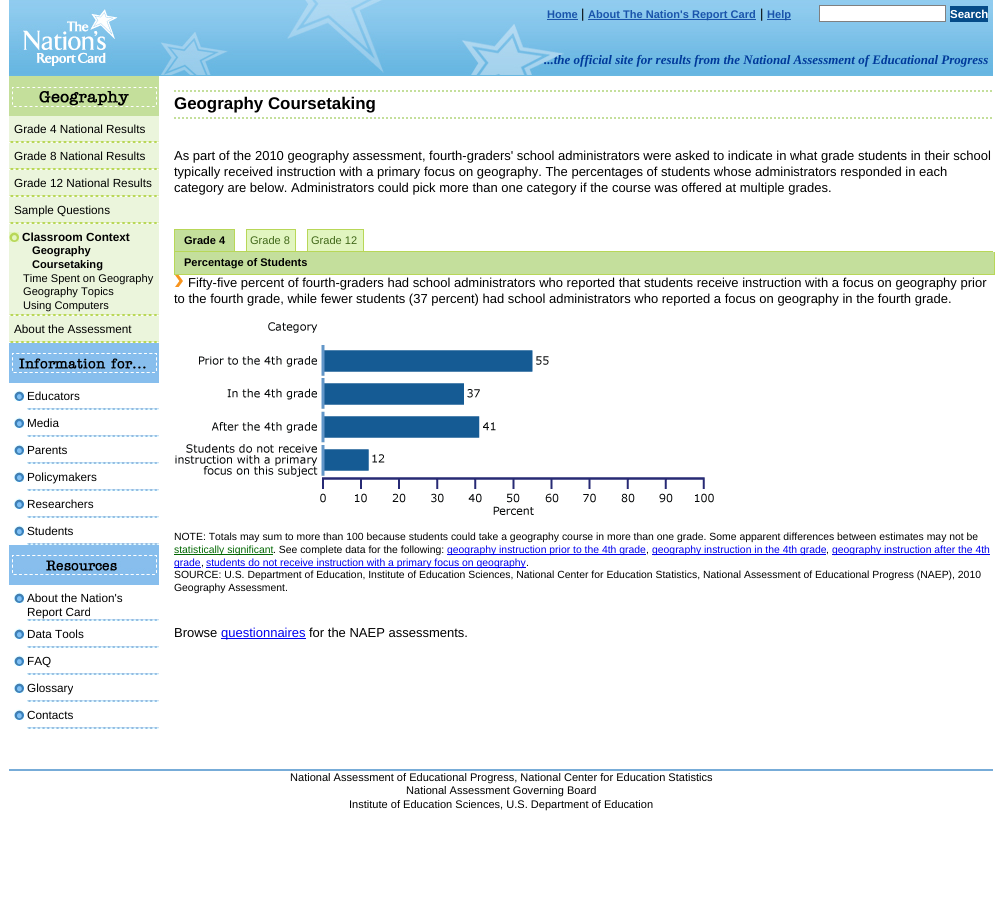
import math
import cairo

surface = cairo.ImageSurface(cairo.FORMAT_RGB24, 1002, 911)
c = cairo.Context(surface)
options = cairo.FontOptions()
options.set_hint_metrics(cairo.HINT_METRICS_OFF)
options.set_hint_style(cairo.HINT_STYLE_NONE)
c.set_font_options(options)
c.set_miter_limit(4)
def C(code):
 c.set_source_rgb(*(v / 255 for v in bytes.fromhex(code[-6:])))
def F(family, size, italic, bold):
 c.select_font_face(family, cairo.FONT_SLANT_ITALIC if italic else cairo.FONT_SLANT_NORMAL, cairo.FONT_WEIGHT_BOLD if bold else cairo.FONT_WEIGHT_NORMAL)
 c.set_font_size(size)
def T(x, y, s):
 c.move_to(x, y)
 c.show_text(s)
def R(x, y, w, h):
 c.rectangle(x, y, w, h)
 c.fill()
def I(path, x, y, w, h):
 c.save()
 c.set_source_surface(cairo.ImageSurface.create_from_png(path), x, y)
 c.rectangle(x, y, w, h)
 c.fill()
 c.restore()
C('ffffff')
c.paint()
C('69b8e1')
R(9,75,984,1)
I('1.png',9,0,984,75)
F('Liberation Sans',11.05,0,1)
C('1a54ab')
T(547,18,'Home')
R(547,19,31,1)
F('Liberation Sans',13,0,0)
C('000000')
T(581,18,'|')
C('1a54ab')
R(588,19,168,1)
F('Liberation Sans',11.05,0,1)
T(588,18,'About The Nation\'s Report Card')
F('Liberation Sans',13,0,0)
C('000000')
T(760,18,'|')
C('1a54ab')
R(767,19,24,1)
F('Liberation Sans',11.05,0,1)
T(767,18,'Help')
C('ffffff')
c.rectangle(819.5,5.5,126,16)
c.fill_preserve()
C('808080')
c.set_line_width(1)
c.stroke()
C('054b88')
R(950,6,38,16)
F('Liberation Sans',11.5,0,1)
C('ffffff')
T(950,18,'Search')
F('Liberation Serif',13,1,1)
C('003a9b')
T(544,64,'...the official site for results from the National Assessment of Educational Progress')
C('c4df9b')
R(9,76,150,40)
I('2.png',12,87,145,20)
C('ebf5dc')
R(9,116,150,25)
I('3.png',9,141,150,2)
F('Liberation Sans',11.75,0,0)
C('000000')
T(14,133,'Grade 4 National Results')
C('ebf5dc')
R(9,143,150,25)
I('3.png',9,168,150,2)
C('000000')
T(14,160,'Grade 8 National Results')
C('ebf5dc')
R(9,170,150,25)
I('3.png',9,195,150,2)
C('000000')
T(14,187,'Grade 12 National Results')
C('ebf5dc')
R(9,197,150,25)
I('3.png',9,222,150,2)
C('000000')
T(14,214,'Sample Questions')
C('ebf5dc')
R(9,224,150,90)
I('3.png',9,314,150,2)
I('4.png',9,232,10,10)
F('Liberation Sans',11.75,0,1)
C('000000')
T(22,241,'Classroom Context')
F('Liberation Sans',11.1,0,1)
T(32,254,'Geography')
T(32,268,'Coursetaking')
F('Liberation Sans',11.1,0,0)
T(23,282,'Time Spent on Geography')
T(23,295,'Geography Topics')
T(23,309,'Using Computers')
C('ebf5dc')
R(9,316,150,25)
I('3.png',9,341,150,2)
F('Liberation Sans',11.75,0,0)
C('000000')
T(14,333,'About the Assessment')
C('87beed')
R(9,343,150,40)
I('5.png',10,353,147,21)
I('6.png',27,408,132,2)
I('7.png',14,390,10,11)
C('000000')
T(27,400,'Educators')
I('6.png',27,435,132,2)
I('7.png',14,417,10,11)
T(27,427,'Media')
I('6.png',27,462,132,2)
I('7.png',14,444,10,11)
T(27,454,'Parents')
I('6.png',27,489,132,2)
I('7.png',14,471,10,11)
T(27,481,'Policymakers')
I('6.png',27,516,132,2)
I('7.png',14,498,10,11)
T(27,508,'Researchers')
I('6.png',27,543,132,2)
I('7.png',14,525,10,11)
T(27,535,'Students')
C('87beed')
R(9,545,150,40)
I('8.png',10,555,147,20)
I('6.png',27,619,132,2)
I('7.png',14,592,10,11)
C('000000')
T(27,602,'About the Nation\'s')
T(27,616,'Report Card')
I('6.png',27,646,132,2)
I('7.png',14,628,10,11)
T(27,638,'Data Tools')
I('6.png',27,673,132,2)
I('7.png',14,655,10,11)
T(27,665,'FAQ')
I('6.png',27,700,132,2)
I('7.png',14,682,10,11)
T(27,692,'Glossary')
I('6.png',27,727,132,2)
I('7.png',14,709,10,11)
T(27,719,'Contacts')
c.new_path()
c.move_to(174,91)
c.line_to(993,91)
C('c4df9b')
c.set_line_width(2)
c.set_dash([2,2])
c.stroke()
c.new_path()
c.move_to(174,118)
c.line_to(993,118)
c.stroke()
F('Liberation Sans',16.9,0,1)
C('000000')
T(174,109,'Geography Coursetaking')
F('Liberation Sans',13,0,0)
T(174,160,'As part of the 2010 geography assessment, fourth-graders\' school administrators were asked to indicate in what grade students in their school')
T(174,176,'typically received instruction with a primary focus on geography. The percentages of students whose administrators responded in each')
T(174,192,'category are below. Administrators could pick more than one category if the course was offered at multiple grades.')
C('b8d758')
R(174,251,819,1)
C('c4df9c')
R(175,230,59,21)
C('b8d758')
R(174,229,61,1)
R(234,229,1,22)
R(174,229,1,22)
F('Liberation Sans',11.05,0,1)
C('000000')
T(184,244,'Grade 4')
C('e1f5c0')
R(247,230,48,21)
C('b8d758')
R(246,229,50,1)
R(295,229,1,22)
R(246,229,1,22)
F('Liberation Sans',11.05,0,0)
C('406718')
T(250,244,'Grade 8')
C('e1f5c0')
R(308,230,55,21)
C('b8d758')
R(307,229,57,1)
R(363,229,1,22)
R(307,229,1,22)
C('406718')
T(311,244,'Grade 12')
C('c4df9c')
R(175,252,819,22)
C('b8d758')
R(994,252,1,23)
R(174,274,821,1)
R(174,252,1,23)
F('Liberation Sans',11.05,0,1)
C('000000')
T(184,266,'Percentage of Students')
I('9.png',175,275,8,12)
F('Liberation Sans',13,0,0)
T(188,287,'Fifty-five percent of fourth-graders had school administrators who reported that students receive instruction with a focus on geography prior')
T(174,303,'to the fourth grade, while fewer students (37 percent) had school administrators who reported a focus on geography in the fourth grade.')
I('10.png',175,322,539,193)
F('Liberation Sans',10.4,0,0)
T(174,540,'NOTE: Totals may sum to more than 100 because students could take a geography course in more than one grade. Some apparent differences between estimates may not be')
C('006600')
R(174,554,99,1)
T(174,553,'statistically significant')
C('000000')
T(273,553,'. See complete data for the following:')
C('0000ee')
R(447,554,199,1)
T(447,553,'geography instruction prior to the 4th grade')
C('000000')
T(646,553,',')
C('0000ee')
R(652,554,174,1)
T(652,553,'geography instruction in the 4th grade')
C('000000')
T(826,553,',')
C('0000ee')
R(832,554,158,1)
T(832,553,'geography instruction after the 4th')
R(174,567,27,1)
T(174,566,'grade')
C('000000')
T(201,566,',')
C('0000ee')
R(206,567,320,1)
T(206,566,'students do not receive instruction with a primary focus on geography')
C('000000')
T(526,566,'.')
T(174,578,'SOURCE: U.S. Department of Education, Institute of Education Sciences, National Center for Education Statistics, National Assessment of Educational Progress (NAEP), 2010')
T(174,591,'Geography Assessment.')
F('Liberation Sans',13,0,0)
T(174,637,'Browse')
C('0000ee')
R(221,638,85,1)
T(221,637,'questionnaires')
C('000000')
T(309,637,'for the NAEP assessments.')
C('77acd8')
R(9,769,984,2)
F('Liberation Sans',11.05,0,0)
C('000000')
T(290,781,'National Assessment of Educational Progress, National Center for Education Statistics')
T(406,794,'National Assessment Governing Board')
T(349,808,'Institute of Education Sciences, U.S. Department of Education')
surface.write_to_png('o.png')
